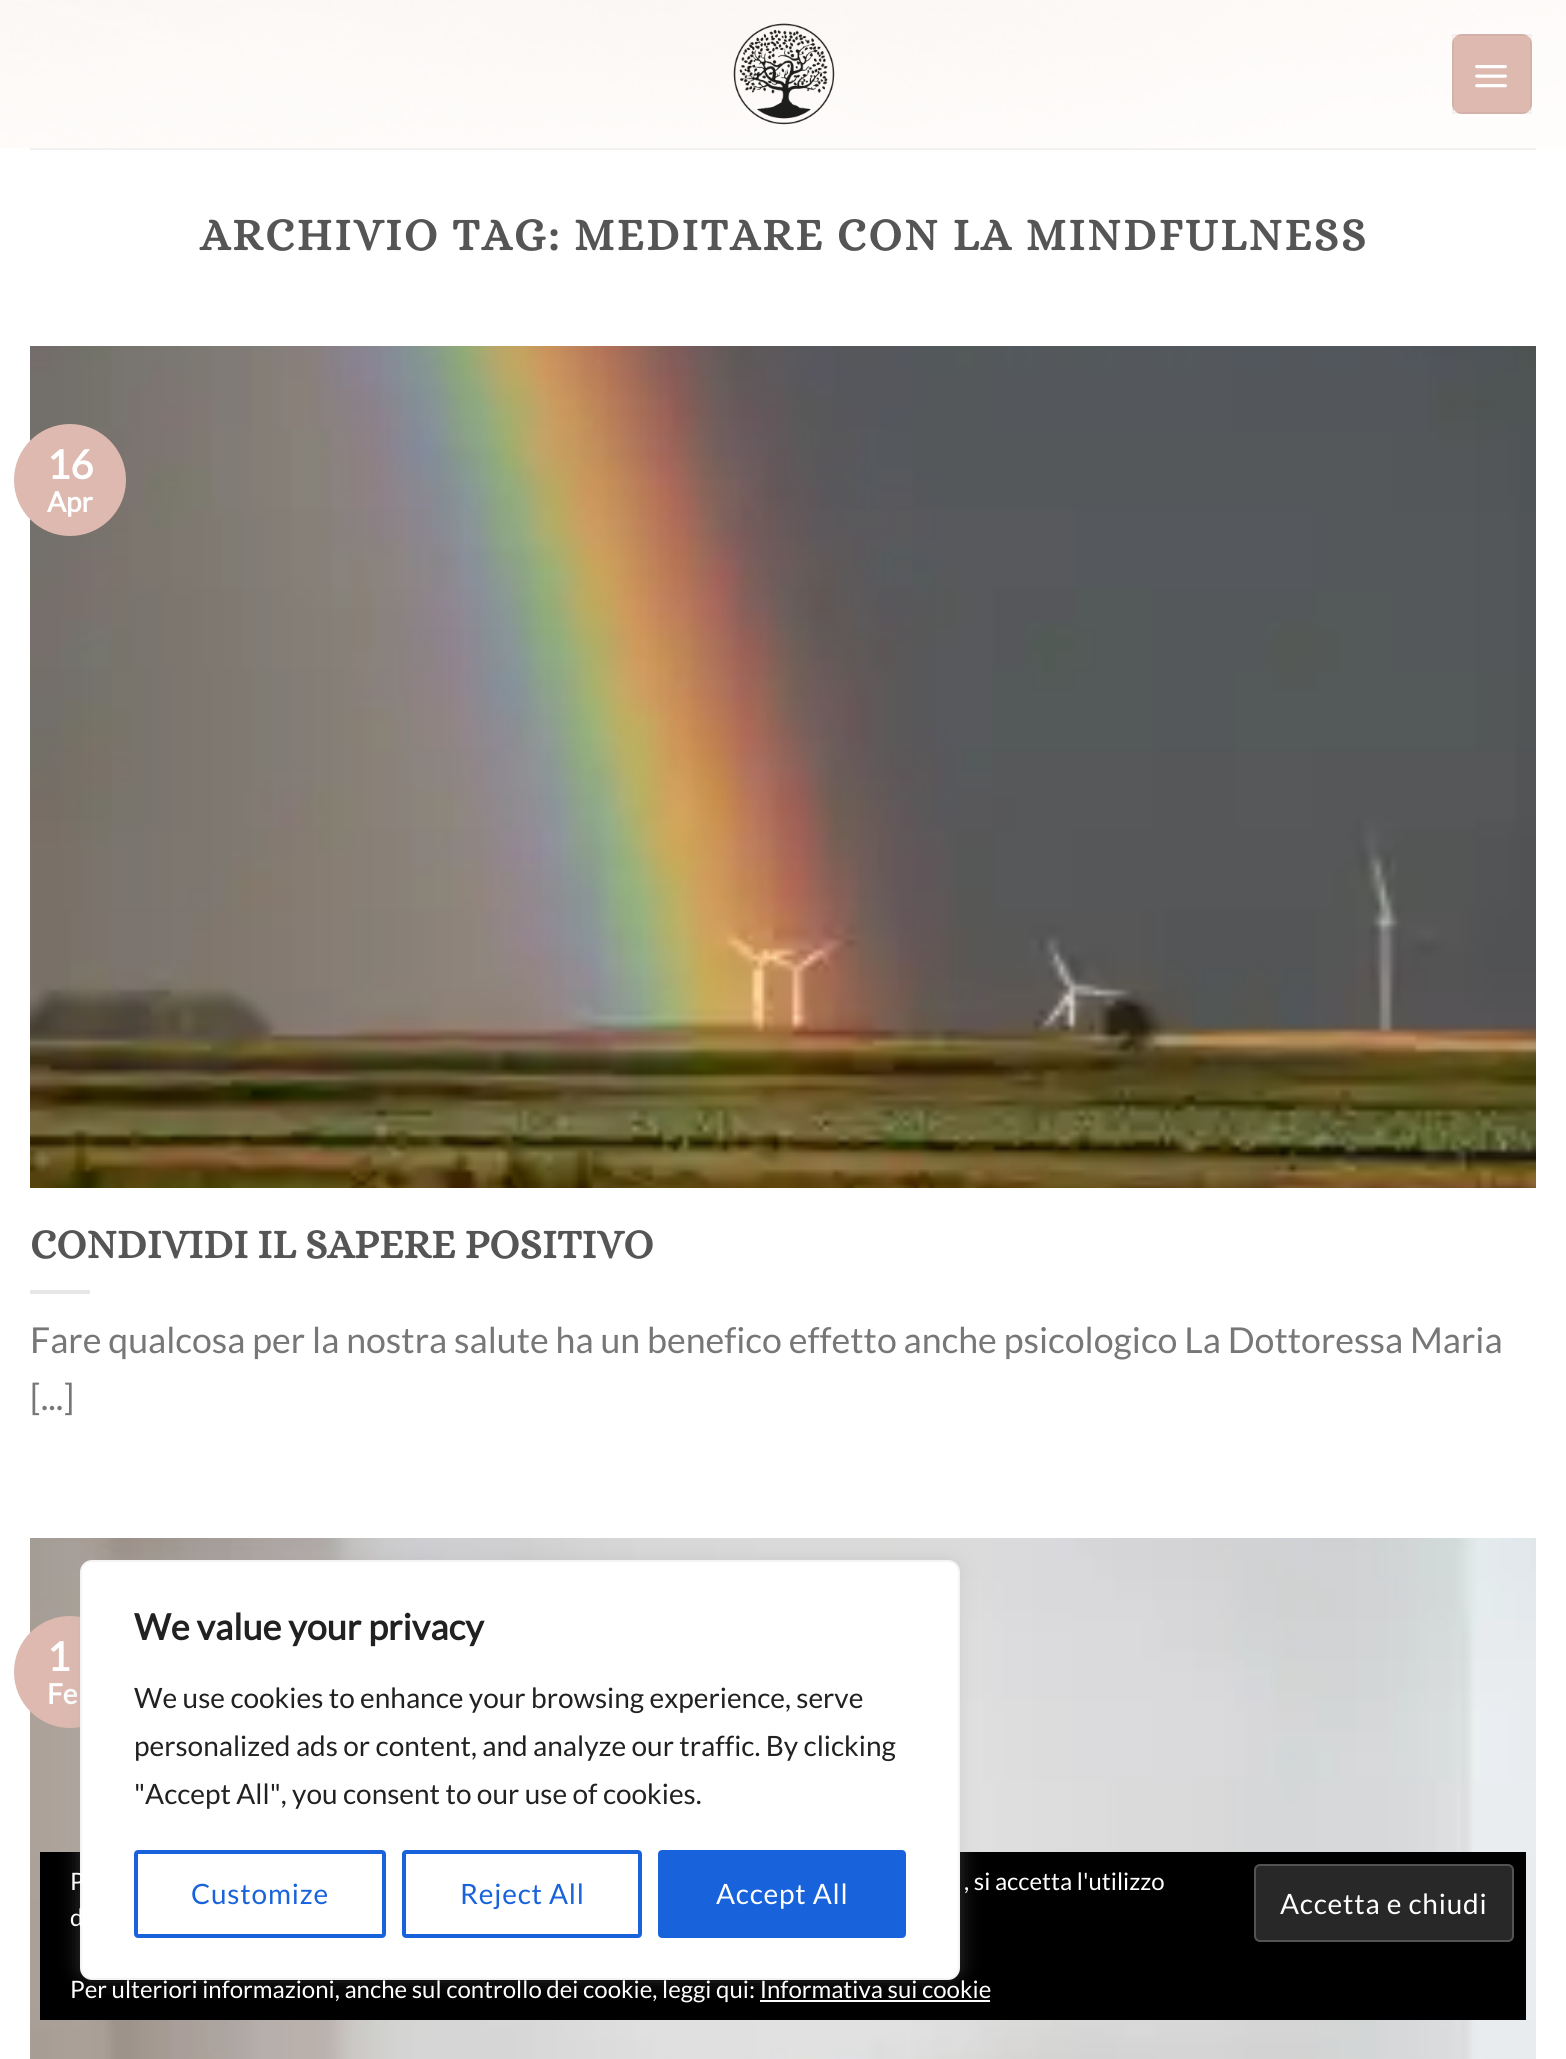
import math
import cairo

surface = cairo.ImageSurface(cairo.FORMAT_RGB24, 1566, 2059)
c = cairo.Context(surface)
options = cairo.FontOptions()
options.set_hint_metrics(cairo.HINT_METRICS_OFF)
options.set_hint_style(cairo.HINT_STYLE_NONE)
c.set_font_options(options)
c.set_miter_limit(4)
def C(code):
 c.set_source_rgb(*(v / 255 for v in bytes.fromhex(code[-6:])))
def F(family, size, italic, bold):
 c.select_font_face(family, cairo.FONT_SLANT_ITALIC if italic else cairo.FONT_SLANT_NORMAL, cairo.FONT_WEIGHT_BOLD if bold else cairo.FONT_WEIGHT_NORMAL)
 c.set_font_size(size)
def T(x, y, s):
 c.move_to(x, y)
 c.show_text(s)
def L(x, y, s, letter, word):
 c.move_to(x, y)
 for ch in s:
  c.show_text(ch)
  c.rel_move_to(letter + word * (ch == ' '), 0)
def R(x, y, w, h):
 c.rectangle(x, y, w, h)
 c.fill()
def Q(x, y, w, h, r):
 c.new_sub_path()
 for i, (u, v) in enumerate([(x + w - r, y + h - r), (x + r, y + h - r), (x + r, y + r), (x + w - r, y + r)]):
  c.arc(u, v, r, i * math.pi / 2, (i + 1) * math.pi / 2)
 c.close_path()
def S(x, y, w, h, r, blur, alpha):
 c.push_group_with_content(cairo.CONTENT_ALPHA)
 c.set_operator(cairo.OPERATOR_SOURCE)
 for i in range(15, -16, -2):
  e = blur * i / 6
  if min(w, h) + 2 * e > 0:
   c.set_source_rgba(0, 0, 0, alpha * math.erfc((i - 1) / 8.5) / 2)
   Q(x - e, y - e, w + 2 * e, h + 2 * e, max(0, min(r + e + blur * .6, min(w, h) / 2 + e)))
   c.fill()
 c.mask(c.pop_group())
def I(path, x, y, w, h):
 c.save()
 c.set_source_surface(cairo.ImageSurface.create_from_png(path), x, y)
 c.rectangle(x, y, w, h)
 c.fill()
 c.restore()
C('ffffff')
c.paint()
I('1.png',0,0,1566,148)
I('2.png',733,23,102,102)
C('ddb9b0')
Q(1452,34,80,80,10)
c.fill()
c.rectangle(1453,35,78,78)
c.set_source_rgba(0,0,0,0.05)
c.stroke()
I('3.png',1475,65,32,23)
C('f1f1f1')
R(30,148,1506,2)
F('Alice',45.6,0,1)
C('555555')
L(200,250,'ARCHIVIO TAG: MEDITARE CON LA MINDFULNESS',2.3,0)
I('4.png',30,346,1506,842)
C('ddb9b0')
c.arc(70,480,56,0,2 * math.pi)
c.fill()
F('Lato',40,0,1)
C('ffffff')
T(47,479,'16')
F('Lato',28,0,1)
T(47,512,'Apr')
F('Alice',41.1,0,1)
C('555555')
T(30,1258,'CONDIVIDI IL SAPERE POSITIVO')
C('e6e6e6')
R(30,1290,60,4)
F('Lato',35.7,0,0)
C('777777')
T(30,1353,'Fare qualcosa per la nostra salute ha un benefico effetto anche psicologico La Dottoressa Maria')
T(30,1410,'[...]')
I('5.png',30,1538,1506,521)
C('ddb9b0')
c.arc(70,1672,56,0,2 * math.pi)
c.fill()
F('Lato',40,0,1)
C('ffffff')
T(47,1671,'1')
F('Lato',28,0,1)
T(47,1704,'Fe')
C('000000')
R(40,1852,1486,168)
C('ffffff')
R(760,2000,230,2)
C('acabab')
S(80,1558,880,420,12,10,.3)
C('ffffff')
Q(81,1561,878,418,11)
c.fill_preserve()
C('f4f4f4')
c.stroke()
F('Lato',36,0,1)
C('212121')
T(134,1640,'We value your privacy')
F('Lato',28,0,0)
T(134,1708,'We use cookies to enhance your browsing experience, serve')
T(134,1756,'personalized ads or content, and analyze our traffic. By clicking')
T(134,1804,'"Accept All", you consent to our use of cookies.')
Q(136,1852,248,84,2)
C('1863dc')
c.set_line_width(4)
c.stroke()
L(191,1904,'Customize',.8,0)
Q(404,1852,236,84,2)
c.stroke()
L(460,1904,'Reject All',.8,0)
Q(660,1852,244,84,2)
c.fill_preserve()
c.stroke()
C('ffffff')
L(716,1904,'Accept All',.8,0)
F('Lato',24,0,0)
T(70,1890,'P')
T(964,1890,', si accetta l\'utilizzo')
C('282828')
Q(1255,1865,258,76,5)
c.fill_preserve()
C('535353')
c.set_line_width(2)
c.stroke()
F('Lato',28,0,0)
C('ffffff')
L(1280,1914,'Accetta e chiudi',.8,0)
F('Lato',24,0,0)
T(70,1926,'d')
T(70,1998,'Per ulteriori informazioni, anche sul controllo dei cookie, leggi qui: Informativa sui cookie')
surface.write_to_png('o.png')
